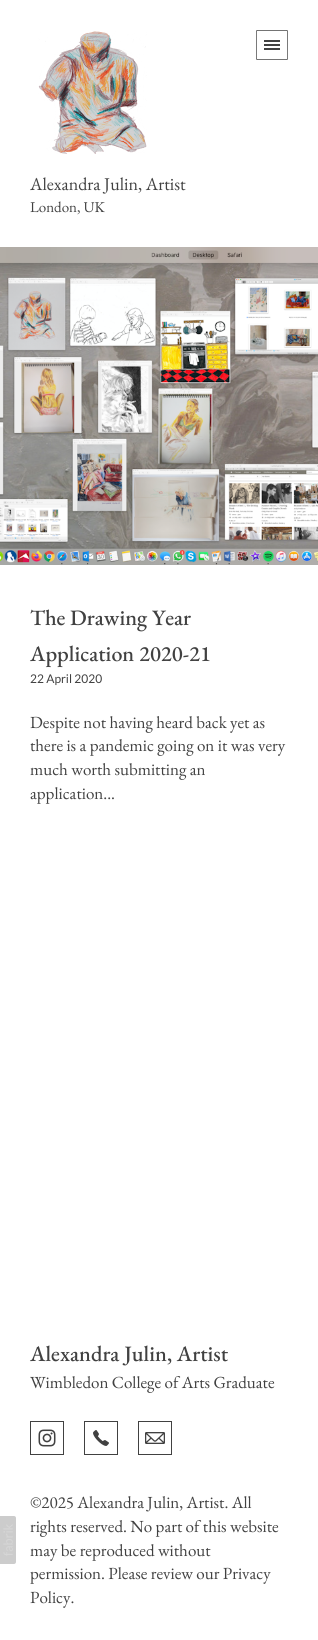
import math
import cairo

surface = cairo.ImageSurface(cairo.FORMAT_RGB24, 318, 1640)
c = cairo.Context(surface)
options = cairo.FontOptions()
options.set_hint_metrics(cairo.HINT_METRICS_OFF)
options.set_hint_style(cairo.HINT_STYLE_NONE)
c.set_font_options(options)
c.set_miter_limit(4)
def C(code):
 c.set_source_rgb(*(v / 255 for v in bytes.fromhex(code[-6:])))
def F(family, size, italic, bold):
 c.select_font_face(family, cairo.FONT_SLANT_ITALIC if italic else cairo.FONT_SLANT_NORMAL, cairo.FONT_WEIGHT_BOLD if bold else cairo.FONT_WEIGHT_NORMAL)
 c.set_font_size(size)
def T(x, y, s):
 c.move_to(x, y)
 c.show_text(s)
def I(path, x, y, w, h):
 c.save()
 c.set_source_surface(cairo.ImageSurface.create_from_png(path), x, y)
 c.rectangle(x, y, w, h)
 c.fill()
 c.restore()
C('ffffff')
c.paint()
I('1.png',256,30,32,30)
I('2.png',38,31,109,123)
F('EB Garamond',18,0,0)
C('414141')
T(30,190,'Alexandra Julin, Artist')
F('EB Garamond',15,0,0)
T(30,212,'London, UK')
I('3.png',0,247,318,318)
F('EB Garamond Medium',22,0,0)
T(30,625,'The Drawing Year')
T(30,661,'Application 2020-21')
F('Lato',12,0,0)
T(30,683,'22 April 2020')
F('EB Garamond',17,0,0)
T(30,728,'Despite not having heard back yet as')
T(30,751,'there is a pandemic going on it was very')
T(30,775,'much worth submitting an')
T(30,799,'application...')
I('4.png',0,1516,16,48)
F('EB Garamond Medium',22,0,0)
T(30,1361,'Alexandra Julin, Artist')
F('EB Garamond',17,0,0)
T(30,1388,'Wimbledon College of Arts Graduate')
c.rectangle(30.5,1421.5,33,33)
c.set_line_width(1)
c.stroke()
I('5.png',38,1429,18,18)
c.rectangle(84.5,1421.5,33,33)
c.stroke()
I('6.png',93,1430,16,16)
c.rectangle(138.5,1421.5,33,33)
c.stroke()
I('7.png',145,1432,20,12)
T(30,1508,'©2025 Alexandra Julin, Artist. All')
T(30,1532,'rights reserved. No part of this website')
T(30,1556,'may be reproduced without')
T(30,1579,'permission. Please review our Privacy')
T(30,1603,'Policy.')
surface.write_to_png('o.png')
